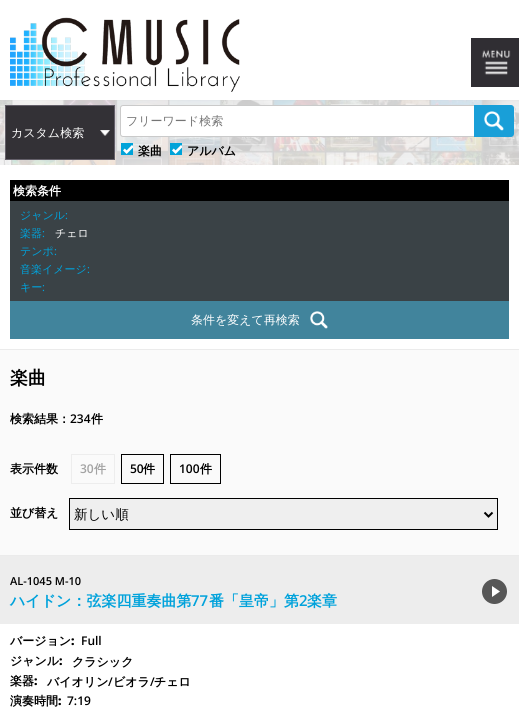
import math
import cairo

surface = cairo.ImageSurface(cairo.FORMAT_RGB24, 519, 722)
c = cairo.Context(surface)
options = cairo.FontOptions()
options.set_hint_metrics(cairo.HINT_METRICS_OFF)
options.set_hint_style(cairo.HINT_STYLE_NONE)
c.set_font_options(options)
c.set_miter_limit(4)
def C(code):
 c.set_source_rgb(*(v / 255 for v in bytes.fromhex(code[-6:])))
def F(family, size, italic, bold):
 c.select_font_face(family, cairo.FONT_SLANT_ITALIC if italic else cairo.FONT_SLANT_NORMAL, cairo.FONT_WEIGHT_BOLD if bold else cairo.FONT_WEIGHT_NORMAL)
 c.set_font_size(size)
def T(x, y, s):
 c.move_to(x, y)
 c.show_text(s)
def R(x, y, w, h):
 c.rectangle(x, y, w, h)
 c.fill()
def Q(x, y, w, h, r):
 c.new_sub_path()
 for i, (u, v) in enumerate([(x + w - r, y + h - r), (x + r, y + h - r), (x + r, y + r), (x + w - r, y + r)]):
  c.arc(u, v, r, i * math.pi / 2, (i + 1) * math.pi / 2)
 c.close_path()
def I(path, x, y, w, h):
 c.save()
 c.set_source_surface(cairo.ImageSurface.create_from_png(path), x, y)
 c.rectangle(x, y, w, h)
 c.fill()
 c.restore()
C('ffffff')
c.paint()
I('1.png',10,17,230,75)
I('2.png',471,38,48,49)
I('3.png',0,100,519,65)
C('333136')
c.rectangle(5.5,105.5,109,54)
c.fill_preserve()
C('635f69')
c.set_line_width(1)
c.stroke()
I('4.png',100,130,10,6)
F('WenQuanYi Zen Hei Medium',12,0,0)
C('ffffff')
T(11,137,'カスタム検索')
Q(120.5,105.5,393,31,2.5)
c.fill_preserve()
C('cacaca')
c.stroke()
C('757575')
T(126,125,'フリーワード検索')
C('199fd8')
c.new_path()
c.move_to(474,105)
c.line_to(511,105)
c.curve_to(512.5,105,514,106.5,514,108)
c.line_to(514,134)
c.curve_to(514,135.5,512.5,137,511,137)
c.line_to(474,137)
c.close_path()
c.fill()
I('5.png',484,111,20,20)
I('6.png',121,143,12,12)
F('WenQuanYi Zen Hei',12,0,1)
C('000000')
T(138,155,'楽曲')
I('6.png',170,143,12,12)
T(187,155,'アルバム')
R(10,180,499,21)
C('ffffff')
T(13,195,'検索条件')
C('3a4246')
R(10,201,499,100)
F('WenQuanYi Zen Hei Medium',11,0,0)
C('00a2db')
T(20,219,'ジャンル')
F('Open Sans',11,0,0)
T(65,219,':')
F('WenQuanYi Zen Hei Medium',11,0,0)
T(20,237,'楽器')
F('Open Sans',11,0,0)
T(42,237,':')
F('WenQuanYi Zen Hei Medium',11,0,0)
C('ffffff')
T(55,237,'チェロ')
C('00a2db')
T(20,255,'テンポ')
F('Open Sans',11,0,0)
T(54,255,':')
F('WenQuanYi Zen Hei Medium',11,0,0)
T(20,273,'音楽イメージ')
F('Open Sans',11,0,0)
T(87,273,':')
F('WenQuanYi Zen Hei Medium',11,0,0)
T(20,291,'キー')
F('Open Sans',11,0,0)
T(42,291,':')
C('41849c')
R(10,301,499,38)
F('WenQuanYi Zen Hei Medium',12,0,0)
C('ffffff')
T(191,324,'条件を変えて再検索')
I('7.png',310,311,18,18)
C('fafafa')
R(0,350,519,205)
C('ebebeb')
R(0,349,519,1)
R(0,555,519,1)
F('WenQuanYi Zen Hei',18,0,1)
C('000000')
T(10,384,'楽曲')
F('WenQuanYi Zen Hei',12,0,1)
T(10,423,'検索結果：')
F('Open Sans SemiBold',12,0,0)
T(70,423,'234')
F('WenQuanYi Zen Hei',12,0,1)
T(91,423,'件')
T(10,473,'表示件数')
c.rectangle(71.5,454.5,43,29)
C('ededed')
c.stroke()
F('Open Sans SemiBold',12,0,0)
C('a3a3a3')
T(80,473,'30')
F('WenQuanYi Zen Hei',12,0,1)
T(94,473,'件')
c.rectangle(121.5,454.5,42,29)
C('000000')
c.stroke()
F('Open Sans SemiBold',12,0,0)
T(130,473,'50')
F('WenQuanYi Zen Hei',12,0,1)
T(143,473,'件')
c.rectangle(170.5,454.5,50,29)
c.stroke()
F('Open Sans SemiBold',12,0,0)
T(179,473,'100')
F('WenQuanYi Zen Hei',12,0,1)
T(200,473,'件')
T(10,517,'並び替え')
C('efefef')
c.rectangle(69.5,498.5,428,31)
c.fill_preserve()
C('000000')
c.stroke()
c.new_path()
c.move_to(484.5,512.5)
c.line_to(488.5,516.5)
c.line_to(492.5,512.5)
c.set_line_width(2)
c.stroke()
F('WenQuanYi Zen Hei Medium',13.5,0,0)
T(74,519,'新しい順')
C('ededed')
R(0,556,519,68)
F('Open Sans SemiBold',11,0,0)
C('000000')
T(10,585,'AL-1045 M-10')
I('8.png',482,579,25,25)
F('WenQuanYi Zen Hei',15,0,1)
C('00a2db')
T(10,606,'ハイドン：弦楽四重奏曲第')
F('Open Sans SemiBold',15,0,0)
T(191,606,'77')
F('WenQuanYi Zen Hei',15,0,1)
T(209,606,'番「皇帝」第')
F('Open Sans SemiBold',15,0,0)
T(299,606,'2')
F('WenQuanYi Zen Hei',15,0,1)
T(307,606,'楽章')
F('WenQuanYi Zen Hei',12,0,1)
C('000000')
T(10,645,'バージョン')
F('Open Sans ExtraBold',12,0,0)
T(71,645,':')
F('Open Sans SemiBold',12,0,0)
T(81,645,'Full')
F('WenQuanYi Zen Hei',12,0,1)
T(10,665,'ジャンル')
F('Open Sans ExtraBold',12,0,0)
T(59,665,':')
F('WenQuanYi Zen Hei',12,0,1)
T(72,666,'クラシック')
T(10,685,'楽器')
F('Open Sans ExtraBold',12,0,0)
T(34,685,':')
F('WenQuanYi Zen Hei',12,0,1)
T(47,686,'バイオリン')
F('Open Sans SemiBold',12,0,0)
T(108,686,'/')
F('WenQuanYi Zen Hei',12,0,1)
T(113,686,'ビオラ')
F('Open Sans SemiBold',12,0,0)
T(150,686,'/')
F('WenQuanYi Zen Hei',12,0,1)
T(154,686,'チェロ')
T(10,705,'演奏時間')
F('Open Sans ExtraBold',12,0,0)
T(58,705,':')
F('Open Sans SemiBold',12,0,0)
T(67,705,'7:19')
surface.write_to_png('o.png')
